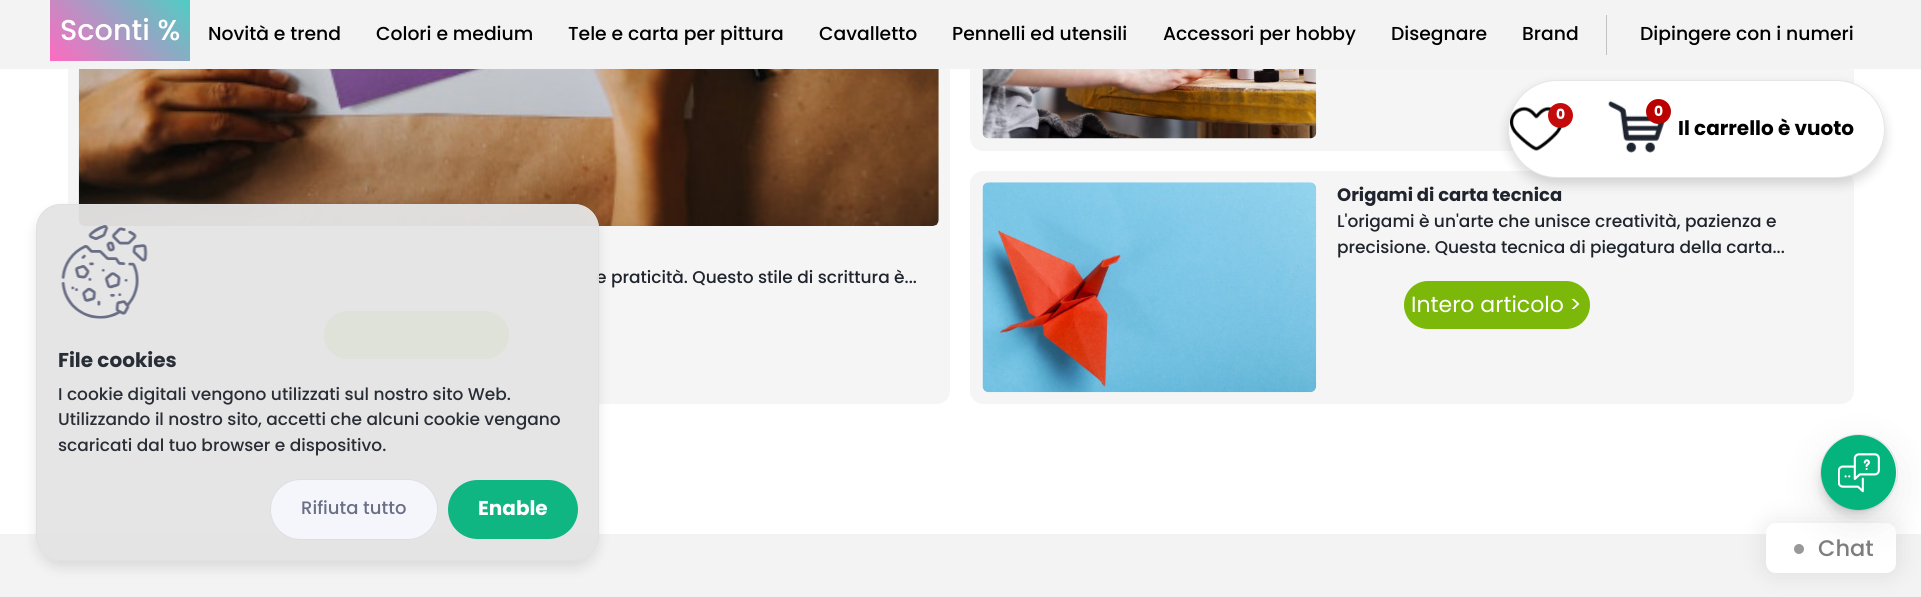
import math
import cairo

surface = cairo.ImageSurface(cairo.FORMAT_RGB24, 1921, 597)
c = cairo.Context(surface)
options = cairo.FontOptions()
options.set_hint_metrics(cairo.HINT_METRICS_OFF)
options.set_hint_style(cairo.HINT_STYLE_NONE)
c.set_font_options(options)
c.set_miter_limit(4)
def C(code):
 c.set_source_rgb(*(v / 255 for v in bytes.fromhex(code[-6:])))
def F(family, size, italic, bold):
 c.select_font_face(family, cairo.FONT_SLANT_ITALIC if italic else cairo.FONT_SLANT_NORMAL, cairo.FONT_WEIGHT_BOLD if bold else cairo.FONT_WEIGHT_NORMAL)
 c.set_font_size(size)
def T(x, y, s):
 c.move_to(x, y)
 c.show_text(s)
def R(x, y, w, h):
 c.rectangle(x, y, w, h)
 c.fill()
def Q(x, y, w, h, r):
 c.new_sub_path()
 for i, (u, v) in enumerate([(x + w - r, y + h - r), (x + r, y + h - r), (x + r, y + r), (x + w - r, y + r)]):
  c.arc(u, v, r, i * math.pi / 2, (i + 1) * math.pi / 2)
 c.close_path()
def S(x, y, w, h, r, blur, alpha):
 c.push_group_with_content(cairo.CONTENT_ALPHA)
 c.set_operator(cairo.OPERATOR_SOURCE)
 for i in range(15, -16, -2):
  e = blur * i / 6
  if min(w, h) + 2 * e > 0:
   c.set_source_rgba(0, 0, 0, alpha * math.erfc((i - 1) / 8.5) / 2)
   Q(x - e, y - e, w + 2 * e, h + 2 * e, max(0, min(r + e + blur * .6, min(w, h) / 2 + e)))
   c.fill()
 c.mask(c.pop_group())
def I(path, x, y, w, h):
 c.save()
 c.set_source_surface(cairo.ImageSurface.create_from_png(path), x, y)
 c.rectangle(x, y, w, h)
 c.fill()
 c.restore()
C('ffffff')
c.paint()
C('f5f5f5')
Q(970,-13,884,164,13)
c.fill()
Q(970,171,884,233,13)
c.fill()
C('000000')
S(1508,86,377,98,49,6,.15)
C('f5f5f5')
Q(68,-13,882,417,13)
c.fill()
C('f3f3f3')
R(0,0,1921,69)
gradient = cairo.LinearGradient(70,81,170,-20)
gradient.add_color_stop_rgba(0,1,0.416,0.757,1)
gradient.add_color_stop_rgba(1,0.306,0.804,0.769,1)
c.set_source(gradient)
R(50,0,140,61)
F('Poppins Medium',28.75,0,0)
C('ffffff')
T(60,40,'Sconti %')
F('Poppins Medium',18.75,0,0)
C('000000')
T(208,40,'Novità e trend')
T(376,40,'Colori e medium')
T(568,40,'Tele e carta per pittura')
T(819,40,'Cavalletto')
T(952,40,'Pennelli ed utensili')
T(1163,40,'Accessori per hobby')
T(1391,40,'Disegnare')
T(1522,40,'Brand')
C('c1c1c1')
R(1606,15,1,40)
C('000000')
T(1640,40,'Dipingere con i numeri')
C('ffffff')
Q(1508,80,377,98,49)
c.fill()
Q(1508.5,80.5,376,97,48.5)
c.set_source_rgba(0,0,0,0.1)
c.set_line_width(1)
c.stroke()
I('1.png',1510,106,52,45)
C('c40b0b')
c.arc(1560.5,115.5,12.5,0,2 * math.pi)
c.fill()
F('Poppins',14,0,1)
C('ffffff')
T(1556,119,'0')
I('2.png',1608,100,57,53)
C('ba0000')
c.arc(1658.5,111.5,12.5,0,2 * math.pi)
c.fill()
C('ffffff')
T(1654,116,'0')
F('Poppins',20,0,1)
C('000000')
T(1678,135,'Il carrello è vuoto')
I('3.png',982,69,335,70)
I('4.png',78,69,861,157)
F('Poppins Medium',17,0,0)
C('1f242d')
T(596,283,'e praticità. Questo stile di scrittura è...')
C('7bb809')
Q(324,311,185,48,24)
c.fill()
I('5.png',982,182,335,211)
F('Poppins',18,0,1)
C('1f242d')
T(1337,201,'Origami di carta tecnica')
F('Poppins Medium',17,0,0)
T(1337,227,'L\'origami è un\'arte che unisce creatività, pazienza e')
T(1337,253,'precisione. Questa tecnica di piegatura della carta...')
C('7bb809')
Q(1404,281,186,48,24)
c.fill()
F('Poppins',22,0,0)
C('ffffff')
T(1411,312,'Intero articolo >')
C('f3f3f3')
R(0,534,1921,63)
C('000000')
S(1766,523,130,50,10,12.5,.1)
S(1823,450,62,63,31,6,.2)
C('ffffff')
Q(1766,523,130,50,10)
c.fill()
C('999999')
c.arc(1799,549,7.5,0,2 * math.pi)
c.fill_preserve()
C('ffffff')
c.set_line_width(5)
c.stroke()
F('Poppins Medium',22.5,0,0)
C('7d7d7d')
T(1818,556,'Chat')
c.save()
c.set_fill_rule(cairo.FILL_RULE_EVEN_ODD)
c.new_path()
c.move_to(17,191)
c.line_to(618,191)
c.line_to(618,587)
c.line_to(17,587)
c.close_path()
c.move_to(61,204)
c.line_to(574,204)
c.curve_to(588,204,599,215,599,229)
c.line_to(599,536)
c.curve_to(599,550,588,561,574,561)
c.line_to(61,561)
c.curve_to(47,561,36,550,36,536)
c.line_to(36,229)
c.curve_to(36,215,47,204,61,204)
c.close_path()
c.clip()
C('000000')
S(36,210,563,358,25,6,.1)
c.restore()
c.set_source_rgba(0.894,0.894,0.894,0.95)
Q(36,204,563,357,25)
c.fill()
Q(36.5,204.5,562,356,24.5)
c.set_source_rgba(0.878,0.878,0.878,0.95)
c.set_line_width(1)
c.stroke()
I('6.png',61,225,87,94)
F('Poppins',20,0,1)
C('292e36')
T(58,367,'File cookies')
F('Poppins Medium',17,0,0)
T(58,400,'I cookie digitali vengono utilizzati sul nostro sito Web.')
T(58,425,'Utilizzando il nostro sito, accetti che alcuni cookie vengano')
T(58,451,'scaricati dal tuo browser e dispositivo.')
C('f5f6fb')
Q(270,479,168,61,30.5)
c.fill()
Q(270.5,479.5,167,60,30)
c.set_source_rgba(0,0,0,0.1)
c.stroke()
F('Poppins Medium',18,0,0)
C('6a6f86')
T(301,514,'Rifiuta tutto')
C('10b681')
Q(448,480,130,59,29.5)
c.fill()
F('Poppins',20,0,1)
C('ffffff')
T(478,515,'Enable')
Q(1820.5,434.5,77,76,38)
c.set_source_rgba(0.588,0.588,0.588,0.2)
c.stroke()
C('969696')
S(1821,448,75,75,37.5,19,.2)
C('05b47c')
c.arc(1858.5,472.5,37.5,0,2 * math.pi)
c.fill()
I('7.png',1838,453,42,40)
surface.write_to_png('o.png')
